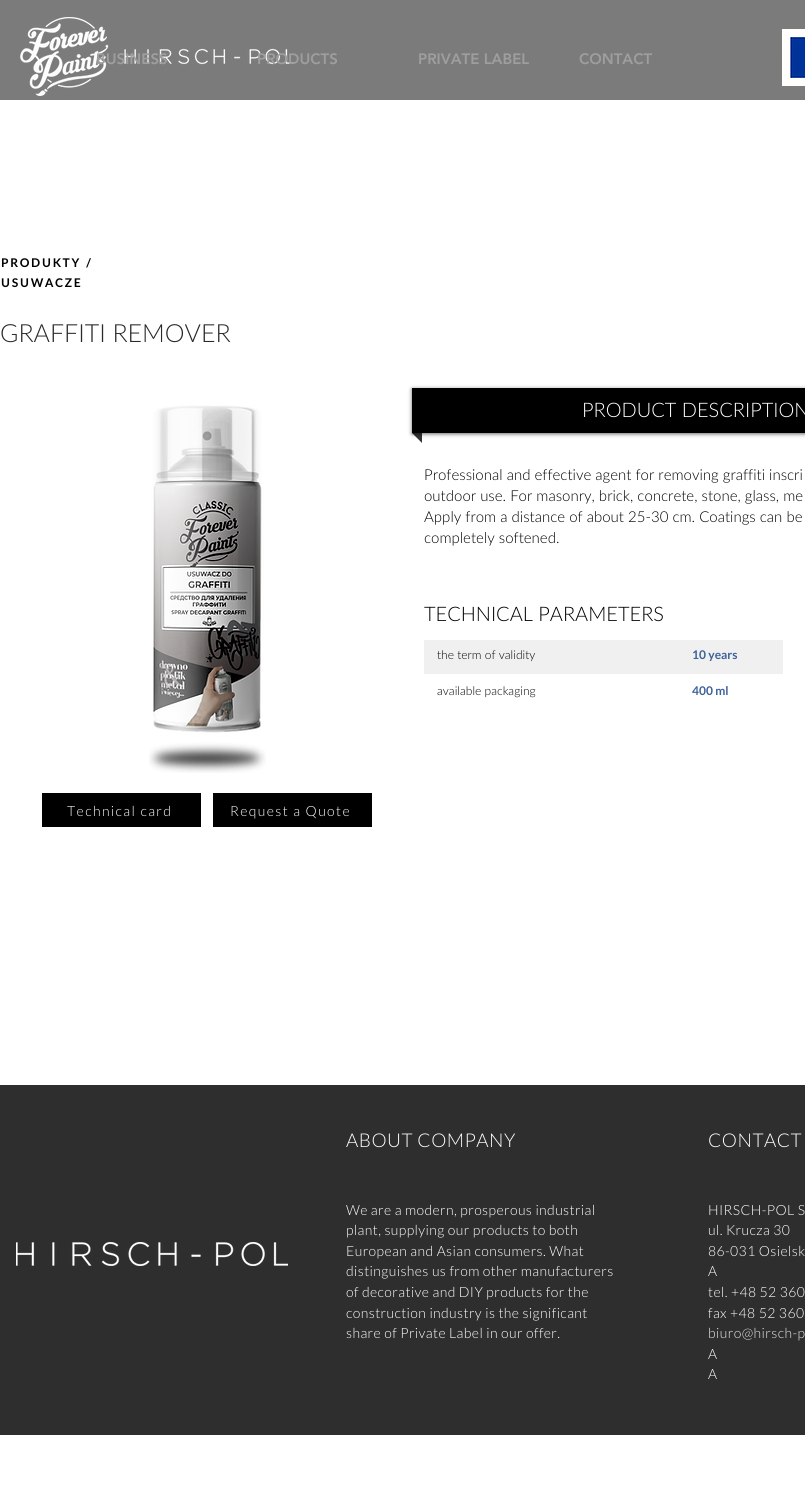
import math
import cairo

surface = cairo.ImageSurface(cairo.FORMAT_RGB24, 805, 1511)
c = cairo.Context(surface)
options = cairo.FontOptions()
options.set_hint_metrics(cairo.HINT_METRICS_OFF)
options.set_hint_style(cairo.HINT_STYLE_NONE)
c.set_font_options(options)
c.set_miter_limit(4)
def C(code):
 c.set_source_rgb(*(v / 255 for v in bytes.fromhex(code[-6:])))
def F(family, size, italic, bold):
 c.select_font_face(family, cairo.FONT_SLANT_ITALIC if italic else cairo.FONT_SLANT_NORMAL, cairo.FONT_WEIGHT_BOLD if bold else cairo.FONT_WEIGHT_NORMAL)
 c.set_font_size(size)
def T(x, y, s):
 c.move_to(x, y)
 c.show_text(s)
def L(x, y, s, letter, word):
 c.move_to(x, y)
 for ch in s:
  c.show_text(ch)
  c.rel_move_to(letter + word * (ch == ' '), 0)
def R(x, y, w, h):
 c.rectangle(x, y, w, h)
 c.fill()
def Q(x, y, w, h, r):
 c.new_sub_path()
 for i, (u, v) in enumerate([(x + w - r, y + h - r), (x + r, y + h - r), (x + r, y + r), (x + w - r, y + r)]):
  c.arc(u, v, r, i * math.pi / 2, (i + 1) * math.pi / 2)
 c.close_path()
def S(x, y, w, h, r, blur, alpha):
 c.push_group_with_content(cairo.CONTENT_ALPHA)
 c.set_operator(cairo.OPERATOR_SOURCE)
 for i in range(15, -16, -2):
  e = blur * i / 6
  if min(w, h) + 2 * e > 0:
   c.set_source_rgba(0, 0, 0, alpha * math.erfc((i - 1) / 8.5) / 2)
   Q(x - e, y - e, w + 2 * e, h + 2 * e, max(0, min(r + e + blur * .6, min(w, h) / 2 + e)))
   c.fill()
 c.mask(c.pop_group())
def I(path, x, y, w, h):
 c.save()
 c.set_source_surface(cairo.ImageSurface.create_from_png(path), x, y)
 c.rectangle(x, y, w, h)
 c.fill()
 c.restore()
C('ffffff')
c.paint()
C('7b7b7b')
R(0,0,805,100)
I('1.png',782,29,23,57)
I('2.png',20,17,274,79)
F('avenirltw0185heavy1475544 Black',15,0,0)
C('9e9e9e')
T(96,64,'BUSINESS')
T(257,64,'PRODUCTS')
T(418,64,'PRIVATE LABEL')
T(579,64,'CONTACT')
F('Lato',12,0,1)
C('000000')
L(1,267,'PRODUKTY /',1.75,0)
L(1,287,'USUWACZE',1.75,0)
I('3.png',149,405,117,368)
F('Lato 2 Light',15,0,0)
T(424,480,'Professional and effective agent for removing graffiti inscri')
T(424,501,'outdoor use. For masonry, brick, concrete, stone, glass, me')
T(424,522,'Apply from a distance of about 25-30 cm. Coatings can be')
T(424,543,'completely softened.')
F('Lato 2 Light',20,0,0)
T(424,621,'TECHNICAL PARAMETERS')
C('f1f0f0')
R(424,640,359,34)
F('Lato 2 Light',12,0,0)
C('000000')
T(437,659,'the term of validity')
F('Lato 2',12,0,1)
C('3d6199')
T(692,659,'10 years')
F('Lato 2 Light',12,0,0)
C('000000')
T(437,695,'available packaging')
F('Lato 2',12,0,1)
C('3d6199')
T(692,695,'400 ml')
C('000000')
R(42,793,159,34)
F('Lato Light',14,0,0)
C('ffffff')
L(67,816,'Technical card',1.4,0)
C('000000')
R(213,793,159,34)
C('ffffff')
L(230,816,'Request a Quote',1.4,0)
F('Lato 2 Light',25,0,0)
C('292929')
T(0,342,'GRAFFITI REMOVER')
C('333333')
c.new_path()
c.move_to(412,433)
c.line_to(422,433)
c.line_to(422,443)
c.close_path()
c.fill()
C('000000')
S(412,389,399,45,0,2,.6)
C('000000')
R(412,388,393,45)
F('Lato 2 Light',20,0,0)
C('ffffff')
T(582,417,'PRODUCT DESCRIPTION')
C('2f2e2e')
R(0,1085,805,350)
F('Lato Light',19,0,0)
C('ffffff')
L(346,1147,'ABOUT COMPANY',.5,0)
L(708,1147,'CONTACT',.5,0)
I('4.png',16,1242,272,24)
F('Lato Light',14,0,0)
L(346,1215,'We are a modern, prosperous industrial',.4,0)
L(346,1235,'plant, supplying our products to both',.4,0)
L(346,1256,'European and Asian consumers. What',.4,0)
L(346,1276,'distinguishes us from other manufacturers',.4,0)
L(346,1297,'of decorative and DIY products for the',.4,0)
L(346,1318,'construction industry is the significant',.4,0)
L(346,1338,'share of Private Label in our offer.',.4,0)
L(708,1215,'HIRSCH-POL S',.4,0)
L(708,1235,'ul. Krucza 30',.4,0)
L(708,1256,'86-031 Osielsk',.4,0)
L(708,1276,'A',.4,0)
L(708,1297,'tel. +48 52 360',.4,0)
L(708,1318,'fax +48 52 360',.4,0)
C('e8e6e6')
L(708,1338,'biuro@hirsch-p',.4,0)
C('ffffff')
L(708,1359,'A',.4,0)
L(708,1379,'A',.4,0)
surface.write_to_png('o.png')
